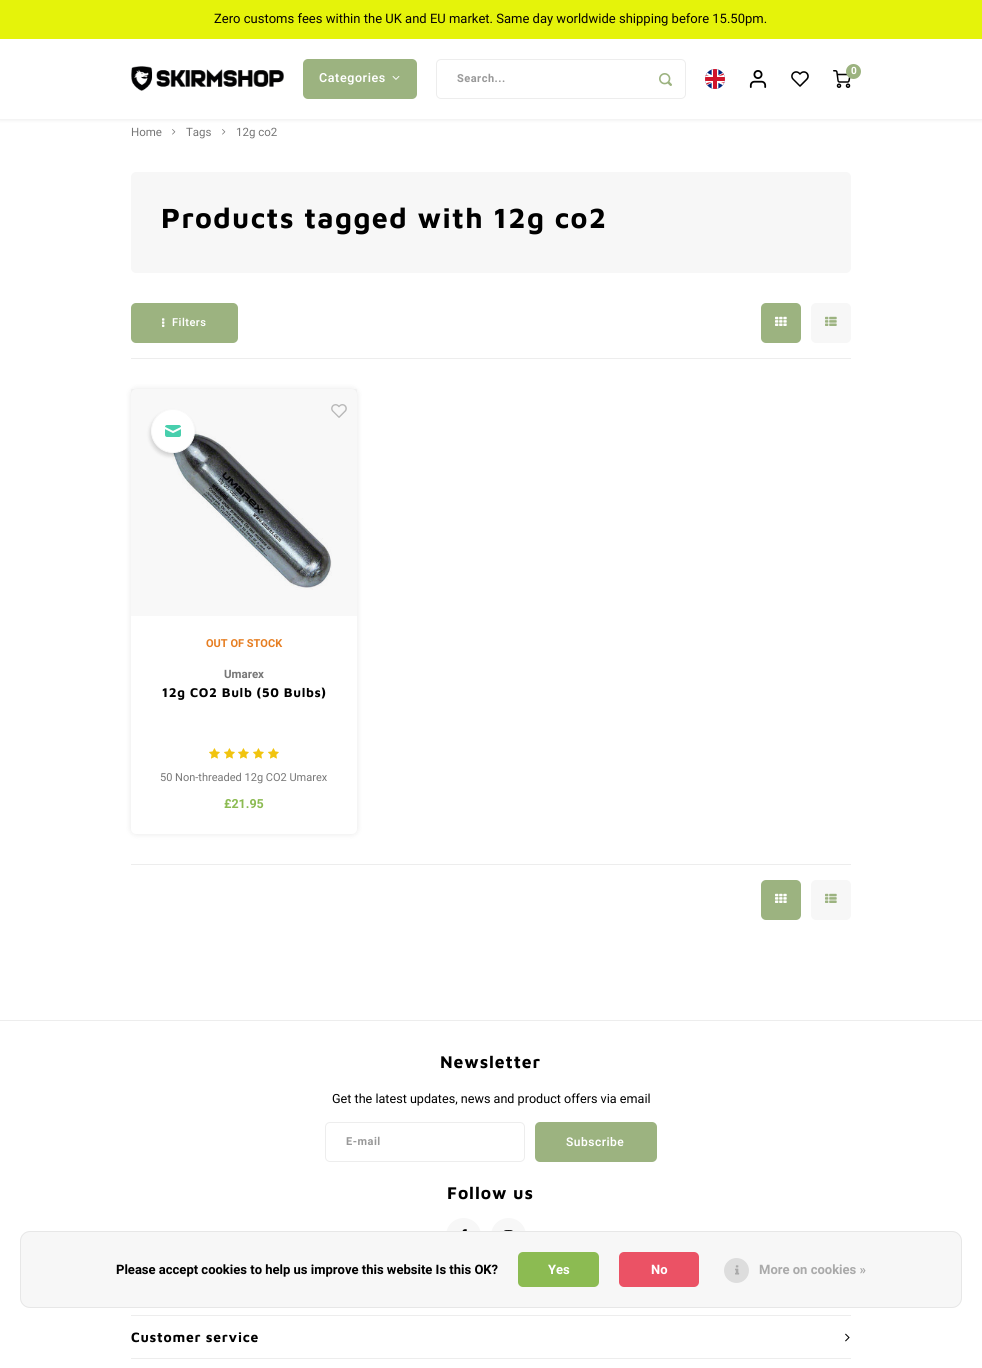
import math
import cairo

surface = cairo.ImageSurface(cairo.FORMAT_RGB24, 982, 1368)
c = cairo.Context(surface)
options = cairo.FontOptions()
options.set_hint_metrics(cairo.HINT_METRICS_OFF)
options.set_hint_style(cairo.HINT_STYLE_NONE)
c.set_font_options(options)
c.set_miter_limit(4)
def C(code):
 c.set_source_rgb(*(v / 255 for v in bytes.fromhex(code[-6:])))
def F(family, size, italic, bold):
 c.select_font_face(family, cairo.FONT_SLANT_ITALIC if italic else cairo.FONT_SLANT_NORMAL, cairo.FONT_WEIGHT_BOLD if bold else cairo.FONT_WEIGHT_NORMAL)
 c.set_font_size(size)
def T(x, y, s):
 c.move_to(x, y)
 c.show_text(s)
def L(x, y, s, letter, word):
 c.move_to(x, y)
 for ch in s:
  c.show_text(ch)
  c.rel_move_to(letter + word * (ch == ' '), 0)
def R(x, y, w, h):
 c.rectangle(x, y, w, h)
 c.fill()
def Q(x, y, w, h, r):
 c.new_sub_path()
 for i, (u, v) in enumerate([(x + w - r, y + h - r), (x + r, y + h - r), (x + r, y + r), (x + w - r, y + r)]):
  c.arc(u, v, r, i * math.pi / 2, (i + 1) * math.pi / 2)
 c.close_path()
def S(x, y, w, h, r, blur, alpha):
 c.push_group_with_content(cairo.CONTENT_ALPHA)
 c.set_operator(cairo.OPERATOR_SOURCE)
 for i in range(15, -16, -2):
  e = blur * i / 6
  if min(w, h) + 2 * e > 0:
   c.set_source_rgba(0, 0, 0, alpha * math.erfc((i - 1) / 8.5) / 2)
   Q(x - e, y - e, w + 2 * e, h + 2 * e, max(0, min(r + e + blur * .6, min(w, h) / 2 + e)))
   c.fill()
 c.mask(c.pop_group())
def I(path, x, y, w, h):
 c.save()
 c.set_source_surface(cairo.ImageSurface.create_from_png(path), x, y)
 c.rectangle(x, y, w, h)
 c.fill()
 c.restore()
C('ffffff')
c.paint()
C('000000')
S(0,1,982,119,0,2,.08)
C('ffffff')
R(0,39,982,80)
C('e5f30a')
R(0,0,982,39)
F('Heebo',13,0,0)
C('080303')
T(214,23,'Zero customs fees within the UK and EU market. Same day worldwide shipping before 15.50pm.')
I('1.png',131,66,153,25)
I('2.png',705,69,20,20)
I('3.png',749,70,18,18)
I('4.png',791,71,18,16)
I('5.png',833,70,18,18)
C('9cb380')
c.arc(853.5,71.5,7.5,0,2 * math.pi)
c.fill()
F('Heebo',10,0,1)
C('ffffff')
T(851,74,'0')
C('9cb380')
Q(303,59,114,40,5)
c.fill()
F('Heebo SemiBold',12.5,0,0)
C('ffffff')
L(319,82,'Categories',.6,0)
I('6.png',392,76,8,4)
Q(436.5,59.5,249,39,4.5)
C('ededed')
c.set_line_width(1)
c.stroke()
F('Heebo',11,0,1)
C('999999')
L(457,82,'Search...',.5,0)
I('7.png',659,73,13,13)
F('Heebo',11.5,0,0)
C('777777')
T(131,136,'Home')
I('8.png',172,129,4,6)
T(186,136,'Tags')
I('8.png',222,129,4,6)
T(236,136,'12g co2')
C('f7f7f7')
Q(131,172,720,101,5)
c.fill()
F('Maven Pro',28.6,0,1)
C('000000')
L(161,228,'Products tagged with 12g co2',1.4,0)
C('ededed')
R(131,358,720,1)
C('9cb380')
Q(131,303,107,40,5)
c.fill()
I('9.png',162,318,3,9)
F('Heebo SemiBold',11,0,0)
C('ffffff')
L(172,326,'Filters',.5,0)
C('9cb380')
Q(761,303,40,40,5)
c.fill()
I('10.png',775,316,12,10)
C('f7f7f7')
Q(811,303,40,40,5)
c.fill()
I('11.png',825,316,12,10)
C('000000')
S(131,389,226,445,5,3,.1)
C('ffffff')
Q(131,389,226,445,5)
c.fill()
I('13.png',156,417,176,173)
c.set_source_rgba(0,0,0,0.03)
R(131,389,226,227)
C('000000')
S(150,412,44,44,22,2,.16)
C('ffffff')
c.arc(173,431,21.5,0,2 * math.pi)
c.fill_preserve()
C('f9f9f9')
c.stroke()
I('12.png',165,425,16,12)
I('14.png',331,404,16,14)
F('Heebo',11,0,1)
C('e67e22')
T(206,647,'OUT OF STOCK')
F('Heebo',11.5,0,1)
C('777777')
T(224,678,'Umarex')
F('Maven Pro',13,0,1)
C('000000')
L(162,697,'12g CO2 Bulb (50 Bulbs)',.65,0)
I('15.png',209,748,11,11)
I('15.png',224,748,11,11)
I('15.png',238,748,11,11)
I('15.png',253,748,11,11)
I('15.png',268,748,11,11)
F('Heebo',11,0,0)
C('777777')
T(160,781,'50 Non-threaded 12g CO2 Umarex')
F('Heebo',12.5,0,1)
C('8cbb52')
T(224,808,'£21.95')
C('ededed')
R(131,864,720,1)
C('9cb380')
Q(761,880,40,40,5)
c.fill()
I('10.png',775,893,12,10)
C('f7f7f7')
Q(811,880,40,40,5)
c.fill()
I('11.png',825,893,12,10)
C('ededed')
R(0,1020,982,1)
F('Maven Pro',17.5,0,1)
C('000000')
L(440,1068,'Newsletter',.9,0)
F('Heebo',12.6,0,0)
T(332,1103,'Get the latest updates, news and product offers via email')
Q(325.5,1122.5,199,39,4.5)
C('ededed')
c.stroke()
F('Heebo',11,0,1)
C('999999')
L(346,1145,'E-mail',.5,0)
C('9cb380')
Q(535,1122,122,40,5)
c.fill()
F('Heebo SemiBold',12,0,0)
C('ffffff')
L(566,1146,'Subscribe',.5,0)
F('Maven Pro',17.5,0,1)
C('000000')
L(447,1199,'Follow us',.9,0)
C('f7f7f7')
c.new_path()
c.arc(463.5,1235.5,17.5,0,2 * math.pi)
c.fill()
I('16.png',462,1229,5,2)
c.arc(508.5,1235.5,17.5,0,2 * math.pi)
c.fill()
I('17.png',504,1230,9,1)
C('ededed')
R(131,1315,720,1)
R(131,1358,720,1)
F('Maven Pro',13.9,0,1)
C('000000')
L(131,1342,'Customer service',.75,0)
I('18.png',845,1333,5,9)
C('f7f7f7')
Q(20,1231,942,77,10)
c.fill()
Q(20.5,1231.5,941,76,9.5)
c.set_source_rgba(0,0,0,0.07)
c.stroke()
F('Heebo',13,0,1)
C('000000')
T(116,1274,'Please accept cookies to help us improve this website Is this OK?')
C('8cbb52')
Q(518,1252,81,35,5)
c.fill()
C('ffffff')
T(548,1274,'Yes')
C('eb5265')
Q(619,1252,80,35,5)
c.fill()
C('ffffff')
T(651,1274,'No')
C('dddddd')
c.new_path()
c.arc(736.5,1270.5,12.5,0,2 * math.pi)
c.fill()
I('19.png',735,1265,5,10)
C('aaaaaa')
T(759,1274,'More on cookies »')
surface.write_to_png('o.png')
